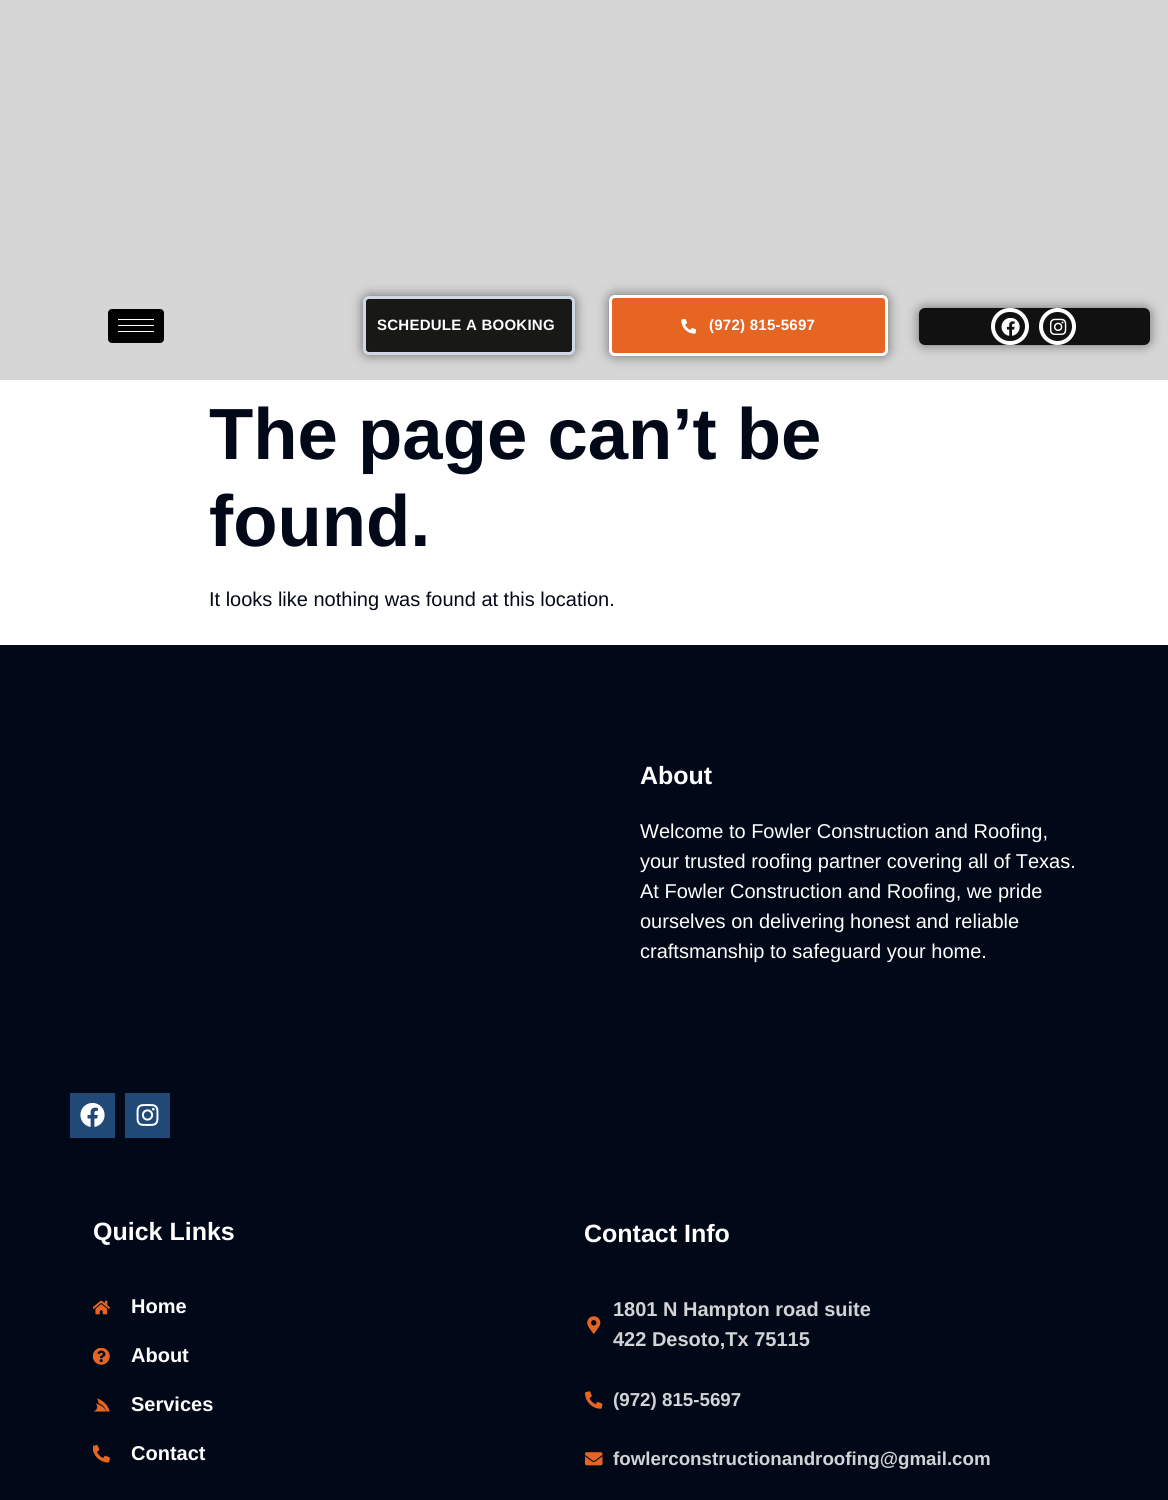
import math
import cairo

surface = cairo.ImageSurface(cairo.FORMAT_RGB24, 1168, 1500)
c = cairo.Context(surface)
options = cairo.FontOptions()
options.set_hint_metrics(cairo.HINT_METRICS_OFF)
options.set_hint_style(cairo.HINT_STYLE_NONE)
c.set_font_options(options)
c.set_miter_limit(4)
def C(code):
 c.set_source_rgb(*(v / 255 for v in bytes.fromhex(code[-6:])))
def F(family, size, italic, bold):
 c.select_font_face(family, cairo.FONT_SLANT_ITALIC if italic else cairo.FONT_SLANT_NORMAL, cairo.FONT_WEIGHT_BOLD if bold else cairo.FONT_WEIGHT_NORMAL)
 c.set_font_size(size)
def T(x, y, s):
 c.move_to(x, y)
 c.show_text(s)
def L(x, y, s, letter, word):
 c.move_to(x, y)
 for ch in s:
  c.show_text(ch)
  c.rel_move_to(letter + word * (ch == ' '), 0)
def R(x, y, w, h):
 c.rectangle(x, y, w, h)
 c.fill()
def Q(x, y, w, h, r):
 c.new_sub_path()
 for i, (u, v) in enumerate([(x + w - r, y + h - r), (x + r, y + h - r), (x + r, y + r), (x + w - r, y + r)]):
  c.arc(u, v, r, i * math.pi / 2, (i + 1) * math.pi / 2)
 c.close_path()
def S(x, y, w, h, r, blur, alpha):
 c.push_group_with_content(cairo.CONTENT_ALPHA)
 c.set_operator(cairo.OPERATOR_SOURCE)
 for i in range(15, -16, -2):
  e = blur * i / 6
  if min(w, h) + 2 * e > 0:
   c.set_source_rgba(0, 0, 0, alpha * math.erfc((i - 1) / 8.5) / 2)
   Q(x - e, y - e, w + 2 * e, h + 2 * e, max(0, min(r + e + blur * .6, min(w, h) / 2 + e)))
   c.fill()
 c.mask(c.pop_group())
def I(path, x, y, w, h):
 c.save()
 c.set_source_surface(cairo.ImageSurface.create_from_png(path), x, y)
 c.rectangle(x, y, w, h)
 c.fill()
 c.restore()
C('ffffff')
c.paint()
C('d6d6d6')
R(0,0,1168,380)
C('020202')
Q(108,309,56,34,4)
c.fill()
C('ffffff')
R(118,319,36,1)
R(118,325,36,1)
R(118,331,36,1)
C('000000')
S(363,296,212,59,6,6,.5)
C('181817')
Q(364.5,297.5,209,56,4.5)
c.fill_preserve()
C('cfd8e3')
c.set_line_width(3)
c.stroke()
F('Liberation Sans',15,0,1)
C('ffffff')
L(377,330,'SCHEDULE A BOOKING',.25,0)
C('000000')
S(609,295,279,61,6,6,.5)
C('e66523')
Q(610.5,296.5,276,58,4.5)
c.fill_preserve()
C('ffffff')
c.stroke()
I('1.png',681,319,15,15)
L(709,330,'(972) 815-5697',.25,0)
C('000000')
S(919,308,231,37,6,6,.5)
C('111111')
Q(919,308,231,37,6)
c.fill()
Q(993,310,34,33,16.5)
C('ffffff')
c.set_line_width(4)
c.stroke()
I('2.png',1001,318,19,18)
c.arc(1057.5,326.5,16.5,0,2 * math.pi)
c.stroke()
I('3.png',1049,318,18,17)
F('Liberation Sans',72.5,0,1)
C('010918')
T(209,459,'The page can’t be')
T(209,546,'found.')
F('Liberation Sans',20,0,0)
T(209,606,'It looks like nothing was found at this location.')
R(0,645,1168,855)
F('Liberation Sans',25,0,1)
C('ffffff')
T(640,784,'About')
F('Liberation Sans',20,0,0)
T(640,838,'Welcome to Fowler Construction and Roofing,')
T(640,868,'your trusted roofing partner covering all of Texas.')
T(640,898,'At Fowler Construction and Roofing, we pride')
T(640,928,'ourselves on delivering honest and reliable')
T(640,958,'craftsmanship to safeguard your home.')
C('204977')
R(70,1093,45,45)
I('4.png',80,1103,25,24)
R(125,1093,45,45)
I('5.png',136,1104,23,22)
F('Liberation Sans',25,0,1)
C('ffffff')
T(93,1240,'Quick Links')
I('6.png',93,1300,17,15)
F('Liberation Sans',20,0,1)
T(131,1313,'Home')
I('7.png',93,1348,17,17)
T(131,1362,'About')
I('8.png',93,1398,17,14)
T(131,1411,'Services')
I('9.png',93,1445,17,18)
T(131,1460,'Contact')
F('Liberation Sans',25,0,1)
T(584,1242,'Contact Info')
I('10.png',587,1316,14,18)
F('Liberation Sans',20,0,1)
C('d1d3d5')
T(613,1316,'1801 N Hampton road suite')
T(613,1346,'422 Desoto,Tx 75115')
I('11.png',585,1391,18,18)
F('Liberation Sans',18.75,0,1)
T(613,1406,'(972) 815-5697')
I('12.png',585,1452,18,14)
T(613,1465,'fowlerconstructionandroofing@gmail.com')
surface.write_to_png('o.png')
